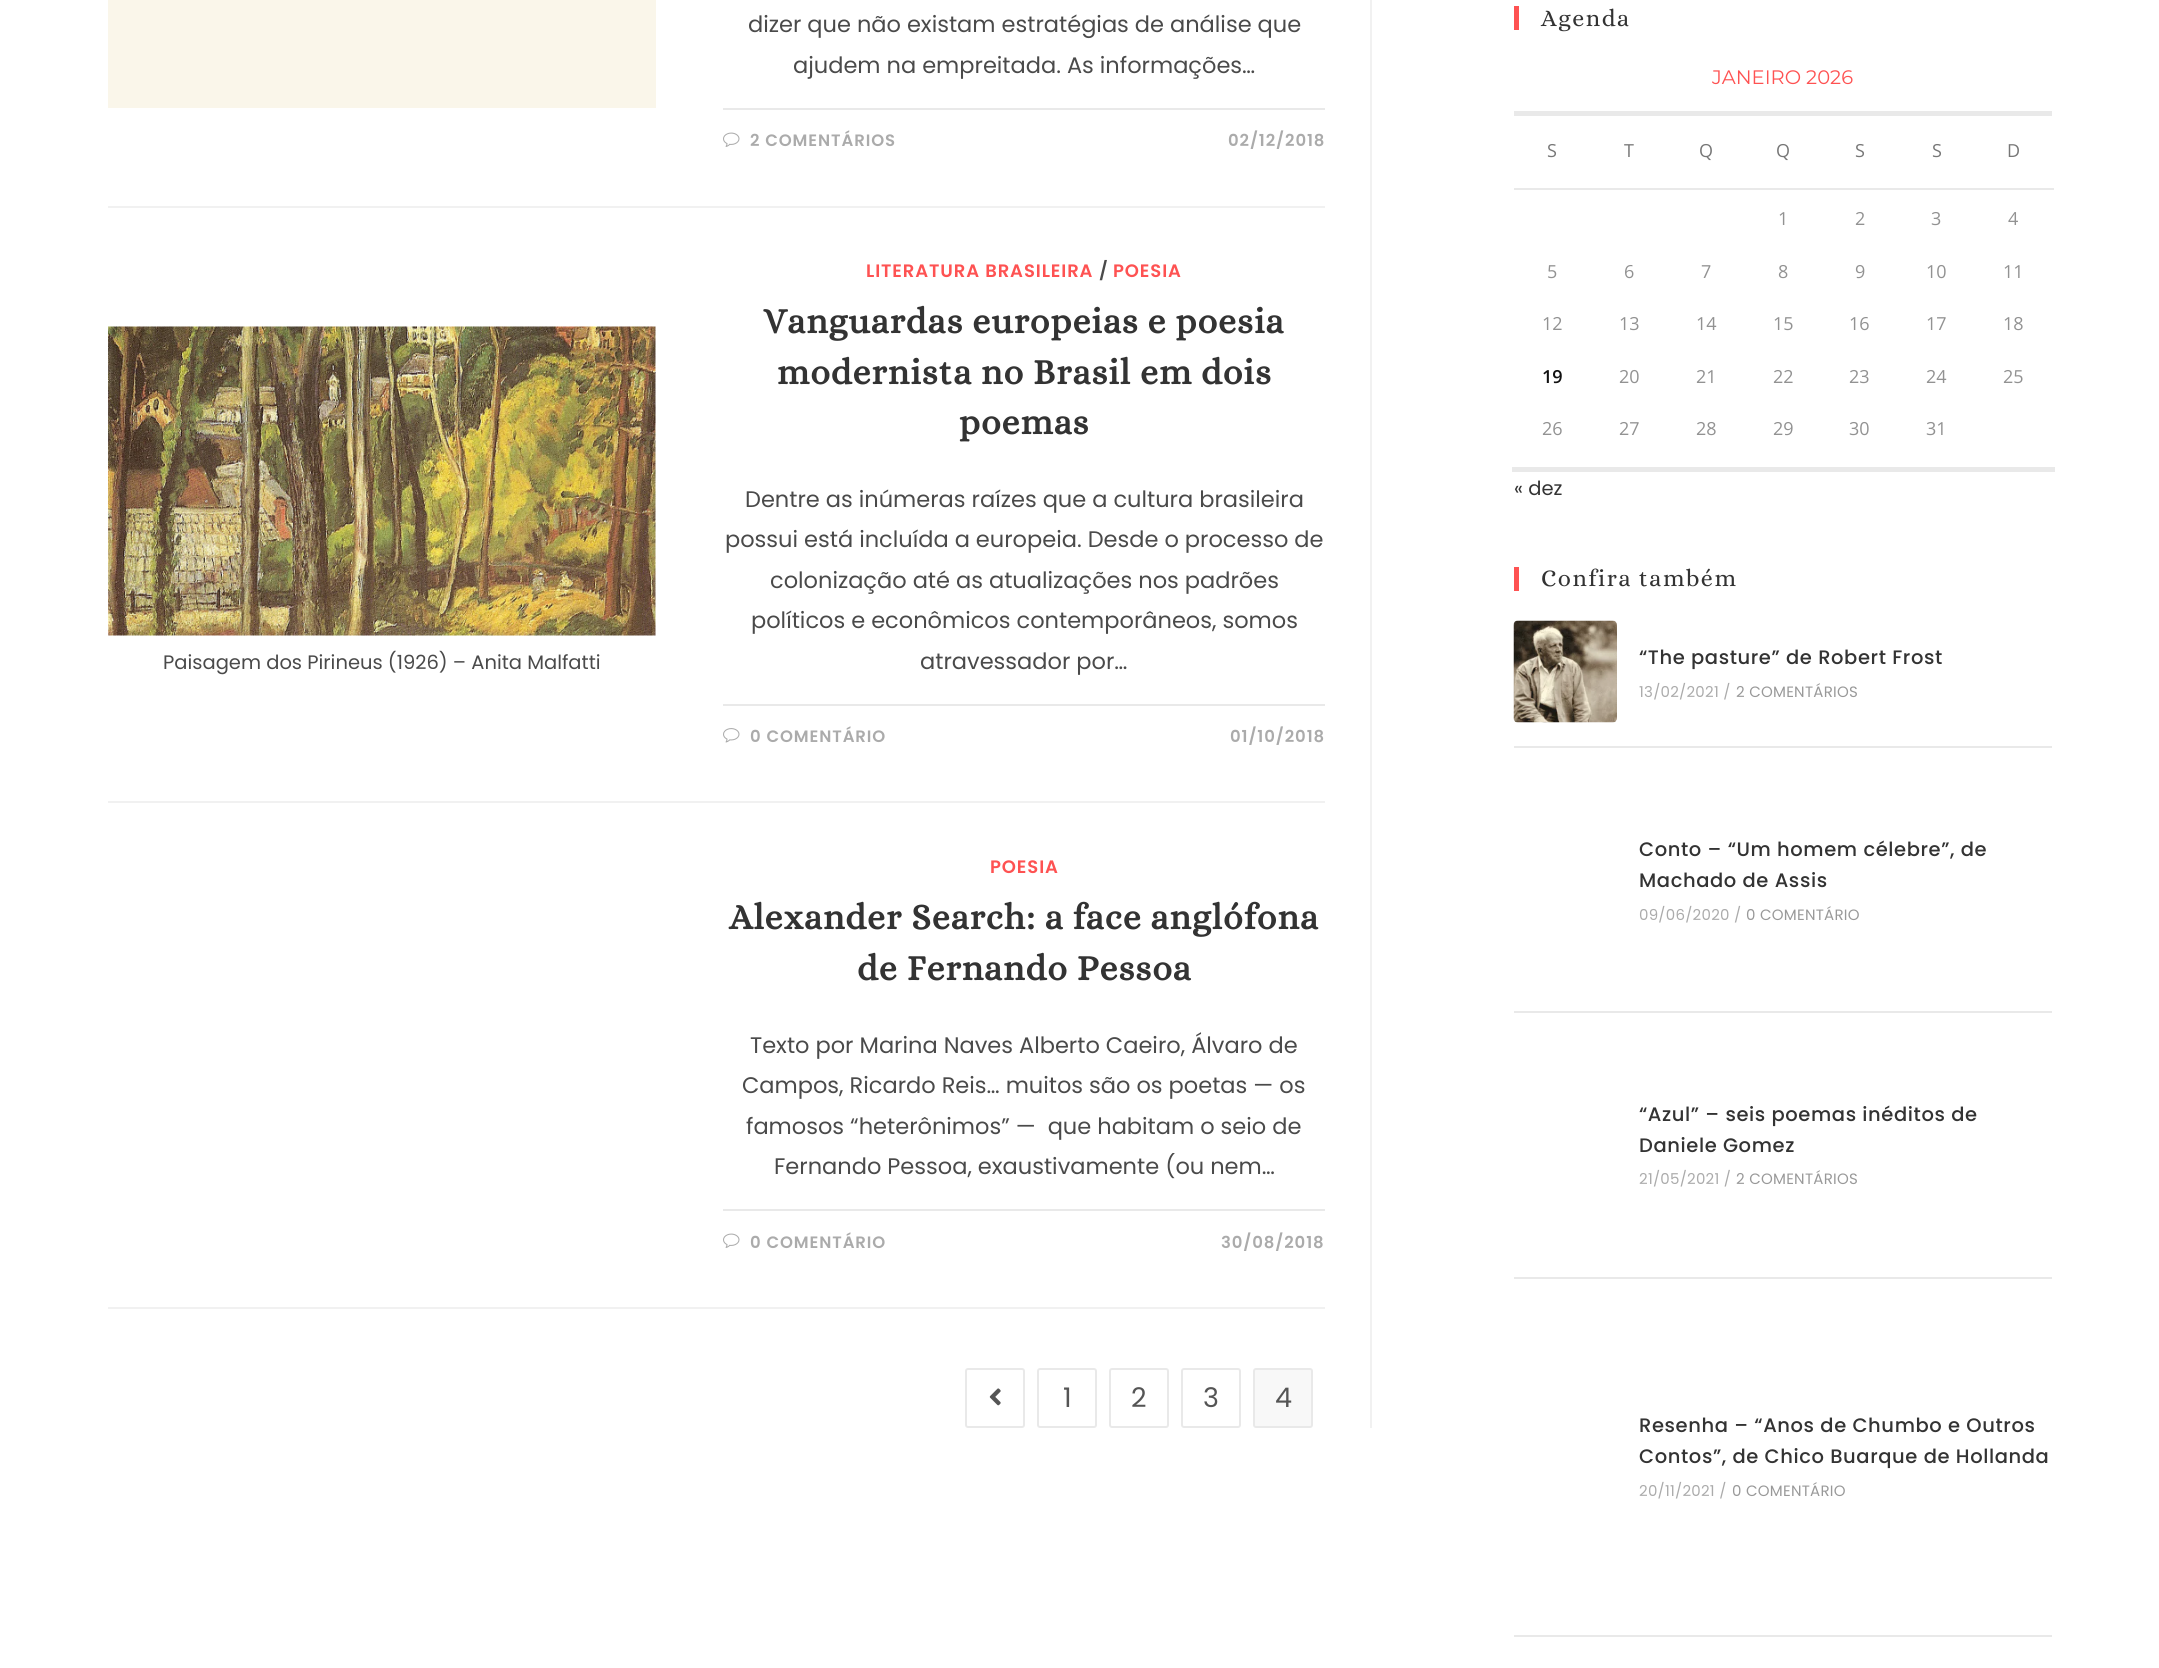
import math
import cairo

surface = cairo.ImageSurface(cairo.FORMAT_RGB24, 2159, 1668)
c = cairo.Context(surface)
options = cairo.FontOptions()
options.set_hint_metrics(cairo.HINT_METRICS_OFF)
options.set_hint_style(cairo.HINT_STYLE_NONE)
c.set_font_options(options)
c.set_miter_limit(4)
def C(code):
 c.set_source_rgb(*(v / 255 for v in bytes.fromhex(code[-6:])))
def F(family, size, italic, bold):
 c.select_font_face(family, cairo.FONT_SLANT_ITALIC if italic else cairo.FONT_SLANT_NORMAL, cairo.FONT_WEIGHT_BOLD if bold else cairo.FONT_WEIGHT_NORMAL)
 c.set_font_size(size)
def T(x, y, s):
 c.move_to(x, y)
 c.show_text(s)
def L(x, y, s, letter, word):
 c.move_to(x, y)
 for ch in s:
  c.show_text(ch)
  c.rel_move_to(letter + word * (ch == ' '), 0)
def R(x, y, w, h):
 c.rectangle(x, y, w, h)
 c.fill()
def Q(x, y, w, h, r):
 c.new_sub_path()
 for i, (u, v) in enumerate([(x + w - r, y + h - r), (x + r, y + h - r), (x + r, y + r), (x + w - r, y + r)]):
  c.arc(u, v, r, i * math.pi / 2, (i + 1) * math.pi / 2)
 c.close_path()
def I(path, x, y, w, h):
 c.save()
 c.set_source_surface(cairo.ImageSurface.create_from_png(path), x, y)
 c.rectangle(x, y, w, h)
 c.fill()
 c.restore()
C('ffffff')
c.paint()
C('f1f1f1')
R(1370,0,2,1428)
R(108,206,1217,2)
C('faf6ea')
R(108,0,548,108)
F('Poppins',22.5,0,0)
C('4a4a4a')
T(748,32,'dizer que não existam estratégias de análise que')
T(793,73,'ajudem na empreitada. As informações…')
C('e9e9e9')
R(723,108,602,2)
I('1.png',723,132,17,15)
F('Poppins SemiBold',16.5,0,0)
C('ababab')
L(750,146,'2 COMENTÁRIOS',.9,0)
L(1228,146,'02/12/2018',.9,0)
C('f1f1f1')
R(108,801,1217,2)
I('2.png',108,326,548,310)
F('Poppins',19.5,0,0)
C('4a4a4a')
T(163,669,'Paisagem dos Pirineus (1926) – Anita Malfatti')
F('Poppins SemiBold',18,0,0)
C('fe5252')
L(866,277,'LITERATURA BRASILEIRA',.9,0)
C('4a4a4a')
L(1099,277,'/',.9,0)
C('fe5252')
L(1113,277,'POESIA',.9,0)
F('Alice',36,0,1)
C('333333')
L(763,333,'Vanguardas europeias e poesia',.9,0)
L(777,384,'modernista no Brasil em dois',.9,0)
L(959,434,'poemas',.9,0)
F('Poppins',22.5,0,0)
C('4a4a4a')
T(745,507,'Dentre as inúmeras raízes que a cultura brasileira')
T(725,547,'possui está incluída a europeia. Desde o processo de')
T(770,588,'colonização até as atualizações nos padrões')
T(751,628,'políticos e econômicos contemporâneos, somos')
T(920,669,'atravessador por…')
C('e9e9e9')
R(723,704,602,2)
I('3.png',723,728,17,15)
F('Poppins SemiBold',16.5,0,0)
C('ababab')
L(750,742,'0 COMENTÁRIO',.9,0)
L(1230,742,'01/10/2018',.9,0)
C('f1f1f1')
R(108,1307,1217,2)
F('Poppins SemiBold',18,0,0)
C('fe5252')
L(990,873,'POESIA',.9,0)
F('Alice',36,0,1)
C('333333')
L(729,929,'Alexander Search: a face anglófona',.9,0)
L(857,980,'de Fernando Pessoa',.9,0)
F('Poppins',22.5,0,0)
C('4a4a4a')
T(750,1053,'Texto por Marina Naves Alberto Caeiro, Álvaro de')
T(742,1093,'Campos, Ricardo Reis… muitos são os poetas — os')
T(746,1134,'famosos “heterônimos” —  que habitam o seio de')
T(774,1174,'Fernando Pessoa, exaustivamente (ou nem…')
C('e9e9e9')
R(723,1209,602,2)
I('1.png',723,1233,17,15)
F('Poppins SemiBold',16.5,0,0)
C('ababab')
L(750,1248,'0 COMENTÁRIO',.9,0)
L(1221,1248,'30/08/2018',.9,0)
Q(966,1369,58,58,2)
C('e9e9e9')
c.stroke()
I('4.png',989,1388,12,18)
Q(1038,1369,58,58,2)
c.stroke()
F('Poppins',27,0,0)
C('555555')
T(1063,1407,'1')
Q(1110,1369,58,58,2)
C('e9e9e9')
c.stroke()
C('555555')
T(1131,1407,'2')
Q(1182,1369,58,58,2)
C('e9e9e9')
c.stroke()
C('555555')
T(1203,1407,'3')
C('f8f8f8')
Q(1254,1369,58,58,2)
c.fill_preserve()
C('e9e9e9')
c.stroke()
C('555555')
T(1275,1407,'4')
C('fe5252')
R(1514,6,5,24)
F('Alice',24,0,0)
C('333333')
L(1541,26,'Agenda',1.5,0)
C('e9e9e9')
R(1514,111,538,5)
F('Montserrat',19.5,0,0)
C('fe5252')
T(1712,84,'JANEIRO 2026')
F('Open Sans',18,0,0)
C('777777')
T(1547,157,'S')
T(1624,157,'T')
T(1699,157,'Q')
T(1776,157,'Q')
T(1855,157,'S')
T(1932,157,'S')
C('e9e9e9')
R(1514,188,540,2)
C('777777')
T(2007,157,'D')
C('e9e9e9')
R(1512,467,543,5)
C('929292')
T(1778,225,'1')
T(1855,225,'2')
T(1931,225,'3')
T(2008,225,'4')
T(1547,278,'5')
T(1624,278,'6')
T(1701,278,'7')
T(1778,278,'8')
T(1855,278,'9')
T(1926,278,'10')
T(2003,278,'11')
T(1542,330,'12')
T(1619,330,'13')
T(1696,330,'14')
T(1773,330,'15')
T(1849,330,'16')
T(1926,330,'17')
T(2003,330,'18')
F('Open Sans SemiBold',18,0,0)
C('111111')
T(1542,383,'19')
F('Open Sans',18,0,0)
C('929292')
T(1619,383,'20')
T(1696,383,'21')
T(1773,383,'22')
T(1849,383,'23')
T(1926,383,'24')
T(2003,383,'25')
T(1542,435,'26')
T(1619,435,'27')
T(1696,435,'28')
T(1773,435,'29')
T(1849,435,'30')
T(1926,435,'31')
F('Poppins',19.5,0,0)
C('333333')
T(1514,495,'« dez')
C('fe5252')
R(1514,567,5,24)
F('Alice',24,0,0)
C('333333')
L(1541,586,'Confira também',1.5,0)
I('5.png',1513,620,104,103)
F('Poppins Medium',19.5,0,0)
L(1639,664,'“The pasture” de Robert Frost',.6,0)
F('Poppins',15,0,0)
C('ababab')
L(1639,697,'13/02/2021 /',.25,0)
C('999999')
L(1736,697,'2 COMENTÁRIOS',.25,0)
C('e9e9e9')
R(1514,746,538,2)
F('Poppins Medium',19.5,0,0)
C('333333')
L(1639,856,'Conto – “Um homem célebre”, de',.6,0)
L(1639,887,'Machado de Assis',.6,0)
F('Poppins',15,0,0)
C('ababab')
L(1639,920,'09/06/2020 /',.25,0)
C('999999')
L(1746,920,'0 COMENTÁRIO',.25,0)
C('e9e9e9')
R(1514,1011,538,2)
F('Poppins Medium',19.5,0,0)
C('333333')
L(1639,1121,'“Azul” – seis poemas inéditos de',.6,0)
L(1639,1152,'Daniele Gomez',.6,0)
F('Poppins',15,0,0)
C('ababab')
L(1639,1184,'21/05/2021 /',.25,0)
C('999999')
L(1736,1184,'2 COMENTÁRIOS',.25,0)
C('e9e9e9')
R(1514,1277,538,2)
F('Poppins Medium',19.5,0,0)
C('333333')
L(1639,1432,'Resenha – “Anos de Chumbo e Outros',.6,0)
L(1639,1463,'Contos”, de Chico Buarque de Hollanda',.6,0)
F('Poppins',15,0,0)
C('ababab')
L(1639,1496,'20/11/2021 /',.25,0)
C('999999')
L(1732,1496,'0 COMENTÁRIO',.25,0)
C('e9e9e9')
R(1514,1635,538,2)
surface.write_to_png('o.png')
